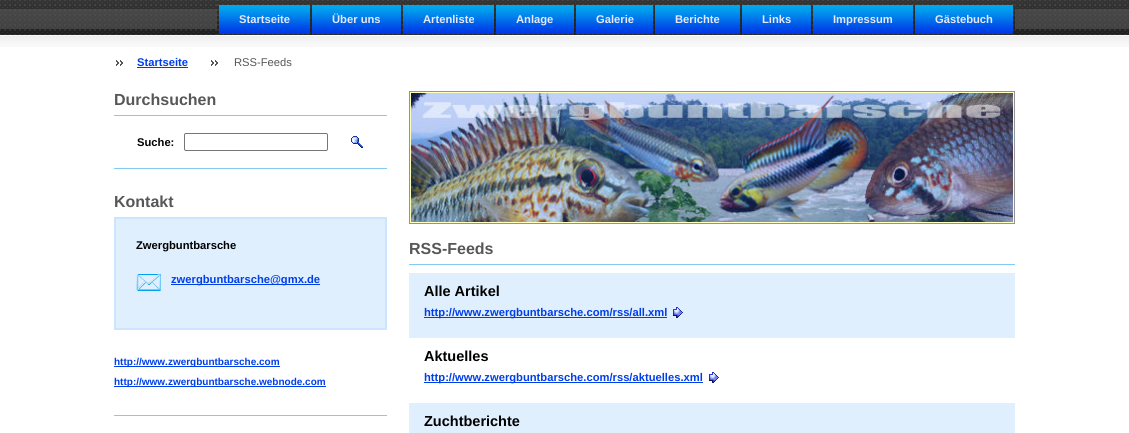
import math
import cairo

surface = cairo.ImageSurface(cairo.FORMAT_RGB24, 1129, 433)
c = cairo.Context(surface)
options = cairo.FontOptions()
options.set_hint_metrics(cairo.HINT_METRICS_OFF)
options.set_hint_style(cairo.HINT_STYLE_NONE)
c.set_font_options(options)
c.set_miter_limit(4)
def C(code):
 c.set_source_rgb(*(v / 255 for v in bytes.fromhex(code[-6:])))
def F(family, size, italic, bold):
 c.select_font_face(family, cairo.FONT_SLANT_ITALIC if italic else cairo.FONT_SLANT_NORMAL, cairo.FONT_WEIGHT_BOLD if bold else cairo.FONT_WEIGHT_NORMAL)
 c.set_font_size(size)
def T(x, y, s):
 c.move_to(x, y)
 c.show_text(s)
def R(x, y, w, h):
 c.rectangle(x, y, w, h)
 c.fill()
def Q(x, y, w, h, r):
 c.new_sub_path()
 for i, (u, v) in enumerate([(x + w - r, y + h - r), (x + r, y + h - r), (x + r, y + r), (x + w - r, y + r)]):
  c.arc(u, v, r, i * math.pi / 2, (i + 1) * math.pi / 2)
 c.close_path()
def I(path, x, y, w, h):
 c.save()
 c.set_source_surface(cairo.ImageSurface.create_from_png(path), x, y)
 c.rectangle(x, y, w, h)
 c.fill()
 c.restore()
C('ffffff')
c.paint()
I('1.png',0,0,1129,47)
I('2.png',114,0,103,35)
I('12.png',114,35,901,12)
I('3.png',217,0,798,36)
I('4.png',219,5,91,29)
F('Liberation Sans',11.2,0,1)
C('e6e8fa')
T(239,23,'Startseite')
I('5.png',312,5,89,29)
T(332,23,'Über uns')
I('4.png',403,5,91,29)
T(423,23,'Artenliste')
I('6.png',496,5,78,29)
T(516,23,'Anlage')
I('7.png',576,5,77,29)
T(596,23,'Galerie')
I('8.png',655,5,85,29)
T(675,23,'Berichte')
I('9.png',742,5,69,29)
T(762,23,'Links')
I('10.png',813,5,100,29)
T(833,23,'Impressum')
I('11.png',915,5,98,29)
T(935,23,'Gästebuch')
I('13.png',116,60,7,6)
C('003ee8')
T(137,66,'Startseite')
R(137,67,51,1)
I('13.png',211,60,7,6)
F('Liberation Sans',11.2,0,0)
C('575757')
T(234,66,'RSS-Feeds')
F('Liberation Sans',16,0,1)
T(114,105,'Durchsuchen')
C('83caf4')
R(114,115,273,1)
R(114,168,273,1)
F('Liberation Sans',11.2,0,1)
C('000000')
T(137,146,'Suche:')
Q(184.5,133.5,143,17,1.5)
C('767676')
c.set_line_width(1)
c.stroke()
I('14.png',351,136,12,12)
F('Liberation Sans',16,0,1)
C('575757')
T(114,207,'Kontakt')
C('e0effe')
c.rectangle(115,218,271,111)
c.fill_preserve()
C('cce4fd')
c.set_line_width(2)
c.stroke()
F('Liberation Sans',11.2,0,1)
C('000000')
T(136,249,'Zwergbuntbarsche')
I('15.png',136,274,25,17)
C('003ee8')
R(171,284,149,1)
T(171,283,'zwergbuntbarsche@gmx.de')
R(114,366,166,1)
F('Liberation Sans',10,0,1)
T(114,365,'http://www.zwergbuntbarsche.com')
R(114,386,212,1)
T(114,385,'http://www.zwergbuntbarsche.webnode.com')
C('83caf4')
R(114,415,273,1)
c.rectangle(409.5,91.5,605,132)
C('939393')
c.set_line_width(1)
c.stroke()
c.rectangle(410.5,92.5,603,130)
C('ffffbe')
c.stroke()
I('16.png',411,93,602,129)
F('Liberation Sans',16,0,1)
C('575757')
T(409,254,'RSS-Feeds')
C('83caf4')
R(409,264,606,1)
C('e0effe')
R(409,273,606,65)
F('Liberation Sans',14.5,0,1)
C('000000')
T(424,296,'Alle Artikel')
C('003ee8')
R(424,317,243,1)
F('Liberation Sans',11.2,0,1)
T(424,316,'http://www.zwergbuntbarsche.com/rss/all.xml')
I('17.png',673,307,10,11)
F('Liberation Sans',14.5,0,1)
C('000000')
T(424,361,'Aktuelles')
C('003ee8')
R(424,382,279,1)
F('Liberation Sans',11.2,0,1)
T(424,381,'http://www.zwergbuntbarsche.com/rss/aktuelles.xml')
I('18.png',709,372,10,11)
C('e0effe')
R(409,403,606,30)
F('Liberation Sans',14.5,0,1)
C('000000')
T(424,426,'Zuchtberichte')
surface.write_to_png('o.png')
